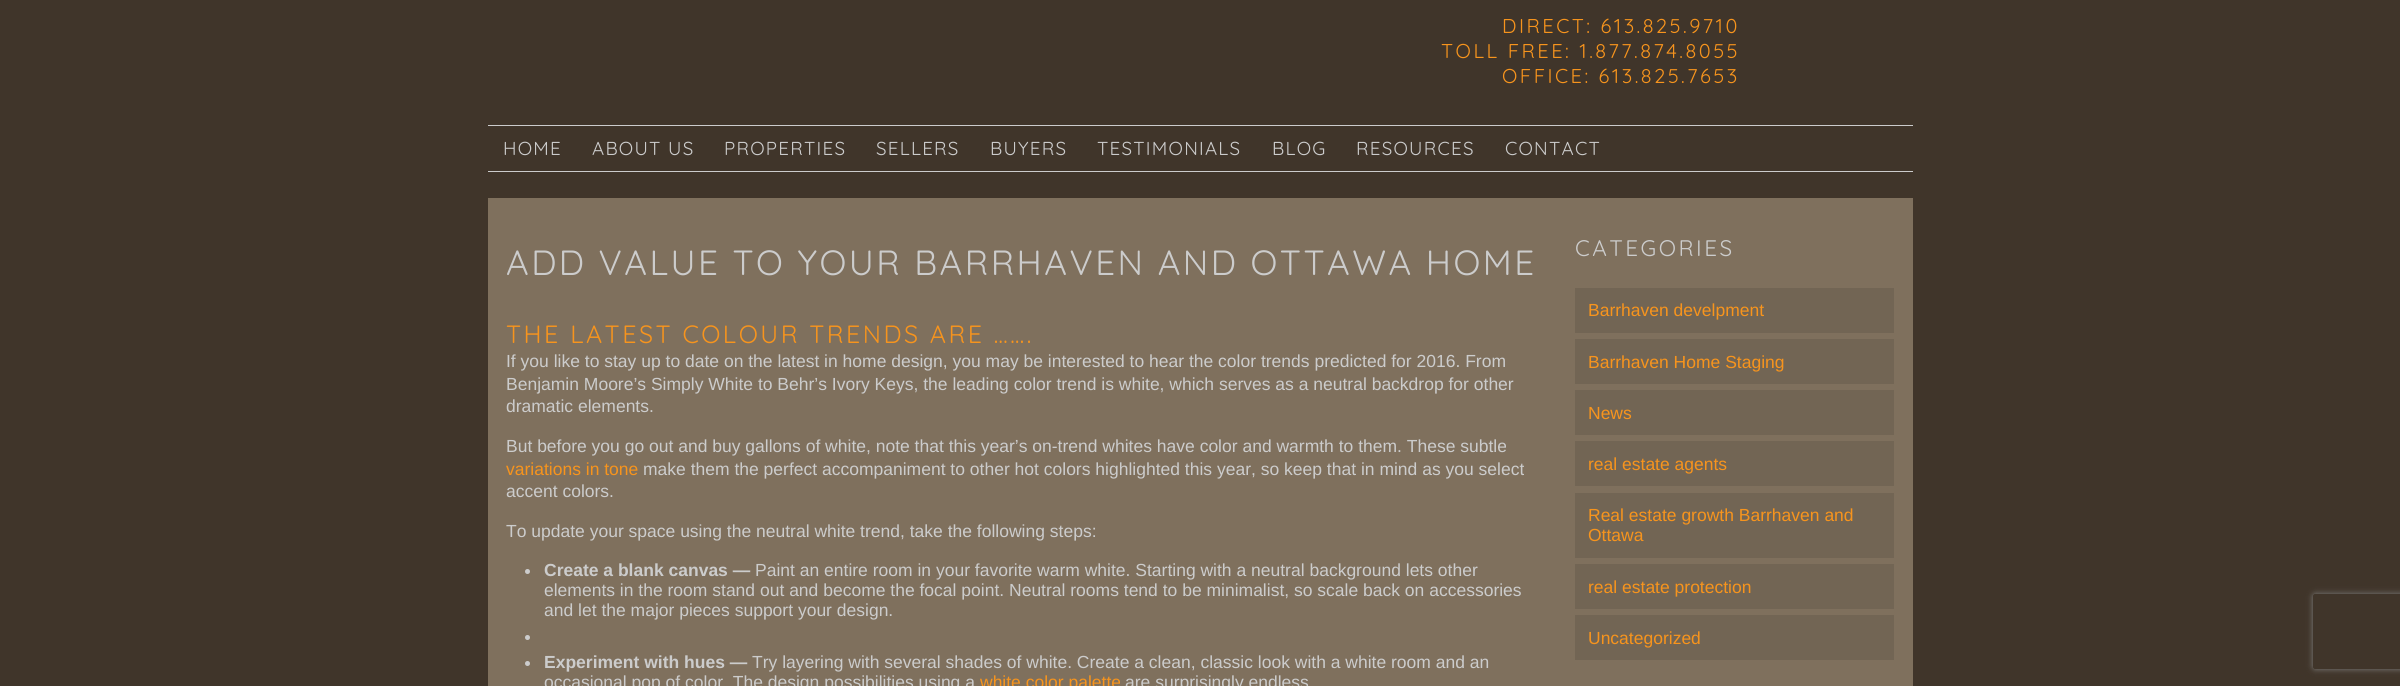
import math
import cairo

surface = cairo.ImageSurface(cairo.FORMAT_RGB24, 2400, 686)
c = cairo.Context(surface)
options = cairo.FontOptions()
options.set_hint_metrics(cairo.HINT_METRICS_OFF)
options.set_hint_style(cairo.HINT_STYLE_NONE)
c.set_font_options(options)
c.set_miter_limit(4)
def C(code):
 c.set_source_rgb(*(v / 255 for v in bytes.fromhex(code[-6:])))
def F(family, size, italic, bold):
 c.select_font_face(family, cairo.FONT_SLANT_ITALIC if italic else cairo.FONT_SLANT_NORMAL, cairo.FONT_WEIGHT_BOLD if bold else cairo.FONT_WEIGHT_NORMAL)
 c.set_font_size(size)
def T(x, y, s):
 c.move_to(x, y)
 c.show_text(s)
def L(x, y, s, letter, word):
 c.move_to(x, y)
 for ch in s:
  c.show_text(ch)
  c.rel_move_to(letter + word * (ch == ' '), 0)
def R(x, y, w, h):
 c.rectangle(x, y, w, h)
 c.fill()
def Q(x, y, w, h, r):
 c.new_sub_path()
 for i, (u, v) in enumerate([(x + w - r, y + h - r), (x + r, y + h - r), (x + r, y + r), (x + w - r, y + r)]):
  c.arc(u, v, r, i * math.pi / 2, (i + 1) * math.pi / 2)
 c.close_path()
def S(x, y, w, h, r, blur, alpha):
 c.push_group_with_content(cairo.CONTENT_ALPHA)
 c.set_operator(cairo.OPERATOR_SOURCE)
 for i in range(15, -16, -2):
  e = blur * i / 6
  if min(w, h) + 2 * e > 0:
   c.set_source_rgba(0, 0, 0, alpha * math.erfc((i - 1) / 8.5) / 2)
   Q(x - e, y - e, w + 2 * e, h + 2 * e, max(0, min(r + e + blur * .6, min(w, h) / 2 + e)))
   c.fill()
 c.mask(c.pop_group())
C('40352a')
c.paint()
F('Quicksand',20,0,0)
C('f7941d')
L(1502,33,'DIRECT: 613.825.9710',2.5,0)
L(1441,58,'TOLL FREE: 1.877.874.8055',2.5,0)
L(1502,83,'OFFICE: 613.825.7653',2.5,0)
C('cccccc')
R(488,125,1425,1)
R(488,171,1425,1)
F('Quicksand',18.75,0,0)
L(503,155,'HOME',1.25,0)
L(592,155,'ABOUT US',1.25,0)
L(724,155,'PROPERTIES',1.25,0)
L(876,155,'SELLERS',1.25,0)
L(990,155,'BUYERS',1.25,0)
L(1097,155,'TESTIMONIALS',1.25,0)
L(1272,155,'BLOG',1.25,0)
L(1356,155,'RESOURCES',1.25,0)
L(1505,155,'CONTACT',1.25,0)
C('7f705d')
R(488,198,1425,488)
F('Quicksand',35,0,0)
C('cccccc')
L(506,275,'ADD VALUE TO YOUR BARRHAVEN AND OTTAWA HOME',2.5,0)
F('Quicksand',25,0,0)
C('f7941d')
L(506,343,'THE LATEST COLOUR TRENDS ARE …….',2.5,0)
F('Liberation Sans',17.5,0,0)
C('cccccc')
T(506,367,'If you like to stay up to date on the latest in home design, you may be interested to hear the color trends predicted for 2016. From')
T(506,390,'Benjamin Moore’s Simply White to Behr’s Ivory Keys, the leading color trend is white, which serves as a neutral backdrop for other')
T(506,412,'dramatic elements.')
T(506,452,'But before you go out and buy gallons of white, note that this year’s on-trend whites have color and warmth to them. These subtle')
C('f7941d')
T(506,475,'variations in tone')
C('cccccc')
T(643,475,'make them the perfect accompaniment to other hot colors highlighted this year, so keep that in mind as you select')
T(506,497,'accent colors.')
T(506,537,'To update your space using the neutral white trend, take the following steps:')
c.new_path()
c.arc(527.5,571.5,2.5,0,2 * math.pi)
c.fill()
F('Liberation Sans',17.5,0,1)
T(544,576,'Create a blank canvas —')
F('Liberation Sans',17.5,0,0)
T(755,576,'Paint an entire room in your favorite warm white. Starting with a neutral background lets other')
T(544,596,'elements in the room stand out and become the focal point. Neutral rooms tend to be minimalist, so scale back on accessories')
T(544,616,'and let the major pieces support your design.')
c.new_path()
c.arc(527.5,637.5,2.5,0,2 * math.pi)
c.fill()
c.arc(527.5,663.5,2.5,0,2 * math.pi)
c.fill()
F('Liberation Sans',17.5,0,1)
T(544,668,'Experiment with hues —')
F('Liberation Sans',17.5,0,0)
T(752,668,'Try layering with several shades of white. Create a clean, classic look with a white room and an')
T(544,688,'occasional pop of color. The design possibilities using a')
C('f7941d')
T(980,688,'white color palette')
C('cccccc')
T(1125,688,'are surprisingly endless')
F('Quicksand',22.5,0,0)
L(1575,256,'CATEGORIES',2.5,0)
C('726554')
R(1575,288,319,45)
F('Liberation Sans',17.5,0,0)
C('f7941d')
T(1588,316,'Barrhaven develpment')
C('726554')
R(1575,339,319,45)
C('f7941d')
T(1588,368,'Barrhaven Home Staging')
C('726554')
R(1575,390,319,45)
C('f7941d')
T(1588,419,'News')
C('726554')
R(1575,441,319,45)
C('f7941d')
T(1588,470,'real estate agents')
C('726554')
R(1575,493,319,65)
C('f7941d')
T(1588,521,'Real estate growth Barrhaven and')
T(1588,541,'Ottawa')
C('726554')
R(1575,564,319,45)
C('f7941d')
T(1588,593,'real estate protection')
C('726554')
R(1575,615,319,45)
C('f7941d')
T(1588,644,'Uncategorized')
c.save()
c.set_fill_rule(cairo.FILL_RULE_EVEN_ODD)
c.new_path()
c.move_to(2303,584)
c.line_to(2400,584)
c.line_to(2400,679)
c.line_to(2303,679)
c.close_path()
c.move_to(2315.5,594)
c.line_to(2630.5,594)
c.curve_to(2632,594,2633,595,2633,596.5)
c.line_to(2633,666.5)
c.curve_to(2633,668,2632,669,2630.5,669)
c.line_to(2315.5,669)
c.curve_to(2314,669,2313,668,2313,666.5)
c.line_to(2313,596.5)
c.curve_to(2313,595,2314,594,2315.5,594)
c.close_path()
c.clip()
C('808080')
S(2313,594,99,75,2.5,3,1)
c.restore()
surface.write_to_png('o.png')
